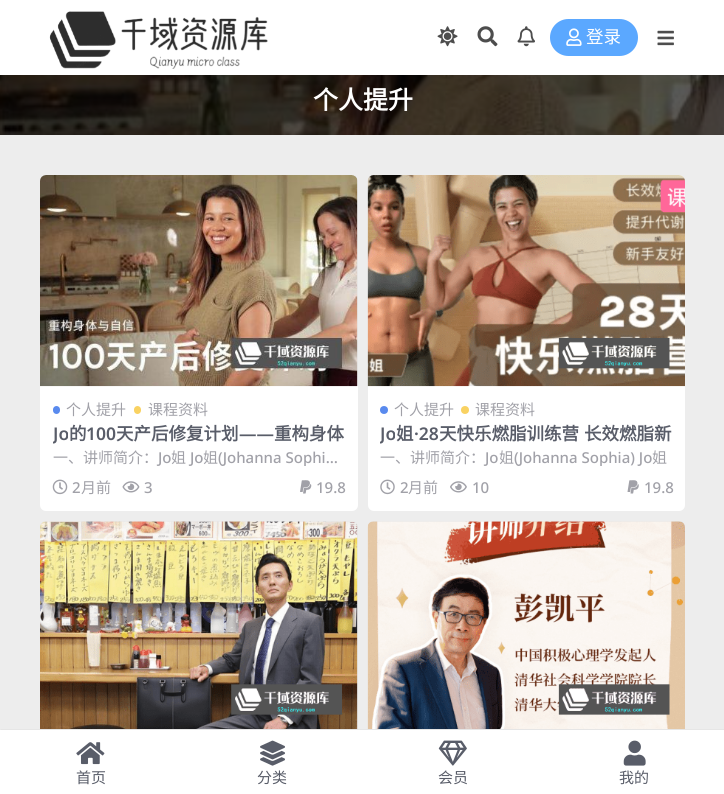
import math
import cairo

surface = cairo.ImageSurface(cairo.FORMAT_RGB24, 724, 794)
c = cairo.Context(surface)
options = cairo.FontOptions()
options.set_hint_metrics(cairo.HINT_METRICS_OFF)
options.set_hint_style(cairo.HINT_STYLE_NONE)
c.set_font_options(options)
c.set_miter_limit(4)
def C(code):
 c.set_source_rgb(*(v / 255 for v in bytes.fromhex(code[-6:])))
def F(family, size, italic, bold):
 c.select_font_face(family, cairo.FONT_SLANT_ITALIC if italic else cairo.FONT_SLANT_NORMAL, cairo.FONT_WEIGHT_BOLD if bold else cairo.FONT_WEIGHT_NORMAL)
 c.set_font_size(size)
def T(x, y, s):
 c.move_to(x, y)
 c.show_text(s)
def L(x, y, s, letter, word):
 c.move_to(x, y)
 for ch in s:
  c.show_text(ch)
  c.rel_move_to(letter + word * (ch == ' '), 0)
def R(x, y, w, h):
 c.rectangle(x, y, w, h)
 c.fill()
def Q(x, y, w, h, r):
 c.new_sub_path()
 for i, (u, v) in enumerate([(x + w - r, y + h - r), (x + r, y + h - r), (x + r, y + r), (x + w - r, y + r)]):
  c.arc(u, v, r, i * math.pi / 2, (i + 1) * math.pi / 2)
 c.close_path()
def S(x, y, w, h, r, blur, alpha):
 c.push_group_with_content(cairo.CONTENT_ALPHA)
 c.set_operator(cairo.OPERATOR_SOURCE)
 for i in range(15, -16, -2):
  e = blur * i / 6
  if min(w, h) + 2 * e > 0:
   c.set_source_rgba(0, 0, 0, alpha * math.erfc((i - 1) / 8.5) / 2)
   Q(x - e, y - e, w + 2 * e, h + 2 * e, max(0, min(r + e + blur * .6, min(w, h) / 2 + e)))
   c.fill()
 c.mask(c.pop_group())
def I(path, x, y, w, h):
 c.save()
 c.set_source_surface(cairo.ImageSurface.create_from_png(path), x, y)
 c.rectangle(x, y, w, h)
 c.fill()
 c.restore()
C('ededed')
c.paint()
I('7.png',0,75,724,60)
C('000000')
S(0,0,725,75,0,19,.07)
C('ffffff')
R(0,0,724,75)
I('1.png',49,11,219,58)
I('2.png',437,26,21,21)
I('3.png',477,26,21,21)
I('4.png',517,26,18,21)
C('5ba8ff')
Q(550,19,88,37,18.5)
c.fill()
I('5.png',566,28,16,18)
F('Noto Sans CJK SC',17.5,0,0)
C('ffffff')
T(586,43,'登录')
I('6.png',657,30,17,16)
F('Noto Sans CJK SC',25,0,1)
T(313,109,'个人提升')
Q(40,175,318,336,6)
c.fill()
C('e7e7e7')
c.new_path()
c.move_to(46,175)
c.line_to(352,175)
c.curve_to(355.5,175,358,177.5,358,181)
c.line_to(358,386)
c.line_to(40,386)
c.line_to(40,181)
c.curve_to(40,177.5,42.5,175,46,175)
c.close_path()
c.fill()
I('8.png',40,175,318,212)
C('598aee')
Q(53,406,7,8,3.5)
c.fill()
F('Noto Sans CJK SC',15,0,0)
C('a1a1a8')
T(66,415,'个人提升')
C('f9d262')
Q(134,406,7,8,3.5)
c.fill()
C('a1a1a8')
T(148,415,'课程资料')
c.save()
c.rectangle(53,424,292,21)
c.clip()
F('Noto Sans SemiBold',17.5,0,0)
C('595d69')
T(53,440,'Jo')
c.restore()
F('Noto Sans CJK SC',17.5,0,1)
C('595d69')
T(69,440,'的')
F('Noto Sans SemiBold',17.5,0,0)
T(86,440,'100')
F('Noto Sans CJK SC',17.5,0,1)
T(116,440,'天产后修复计划')
F('Noto Sans SemiBold',17.5,0,0)
T(239,440,'——')
F('Noto Sans CJK SC',17.5,0,1)
T(274,440,'重构身体')
F('Noto Sans CJK SC',15,0,0)
C('a1a1a8')
T(53,463,'一、讲师简介：')
F('Noto Sans Medium',15,0,0)
T(158,463,'Jo')
F('Noto Sans CJK SC',15,0,0)
T(171,463,'姐')
F('Noto Sans Medium',15,0,0)
T(190,463,'Jo')
F('Noto Sans CJK SC',15,0,0)
T(203,463,'姐')
c.save()
c.rectangle(53,448,292,18)
c.clip()
F('Noto Sans Medium',15,0,0)
T(218,463,'(Johanna Sophi…')
c.restore()
I('9.png',52,479,16,16)
F('Noto Sans Medium',15,0,0)
T(72,493,'2')
F('Noto Sans CJK SC',15,0,0)
T(81,493,'月前')
I('10.png',122,481,18,12)
F('Noto Sans Medium',15,0,0)
T(144,493,'3')
I('11.png',300,480,12,14)
T(316,493,'19.8')
C('ffffff')
Q(368,175,317,336,6)
c.fill()
I('12.png',367,175,318,212)
C('598aee')
c.arc(384,410,4,0,2 * math.pi)
c.fill()
F('Noto Sans CJK SC',15,0,0)
C('a1a1a8')
T(394,415,'个人提升')
C('f9d262')
c.new_path()
c.arc(465,410,4,0,2 * math.pi)
c.fill()
C('a1a1a8')
T(475,415,'课程资料')
c.save()
c.rectangle(380,424,293,21)
c.clip()
F('Noto Sans SemiBold',17.5,0,0)
C('595d69')
T(380,440,'Jo')
c.restore()
F('Noto Sans CJK SC',17.5,0,1)
C('595d69')
T(396,440,'姐')
F('Noto Sans SemiBold',17.5,0,0)
T(414,440,'·28')
F('Noto Sans CJK SC',17.5,0,1)
L(439,440,'天快乐燃脂训练营 长效燃脂新',0,1)
F('Noto Sans CJK SC',15,0,0)
C('a1a1a8')
T(380,463,'一、讲师简介：')
F('Noto Sans Medium',15,0,0)
T(485,463,'Jo')
F('Noto Sans CJK SC',15,0,0)
T(499,463,'姐')
c.save()
c.rectangle(380,448,293,18)
c.clip()
F('Noto Sans Medium',15,0,0)
T(514,463,'(Johanna Sophia) Jo')
c.restore()
T(652,463,'姐')
I('13.png',380,479,15,16)
F('Noto Sans Medium',15,0,0)
T(400,493,'2')
F('Noto Sans CJK SC',15,0,0)
T(408,493,'月前')
I('14.png',450,481,17,12)
F('Noto Sans Medium',15,0,0)
T(472,493,'10')
I('15.png',627,480,12,14)
T(644,493,'19.8')
C('e7e7e7')
c.new_path()
c.move_to(46,521)
c.line_to(352,521)
c.curve_to(355.5,521,358,523.5,358,527)
c.line_to(358,733)
c.line_to(40,733)
c.line_to(40,527)
c.curve_to(40,523.5,42.5,521,46,521)
c.close_path()
c.fill()
I('16.png',40,521,318,208)
c.new_path()
c.move_to(374,521)
c.line_to(679,521)
c.curve_to(682.5,521,685,523.5,685,527)
c.line_to(685,733)
c.line_to(368,733)
c.line_to(368,527)
c.curve_to(368,523.5,370.5,521,374,521)
c.close_path()
c.fill()
I('17.png',367,521,318,208)
C('ffffff')
R(0,729,724,65)
C('e6e6e6')
Q(0,729,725,1,.5)
c.fill()
I('18.png',76,742,29,23)
F('Noto Sans CJK SC',15,0,0)
C('595d69')
T(76,783,'首页')
I('19.png',260,740,25,26)
T(257,783,'分类')
I('20.png',438,740,29,26)
T(438,783,'会员')
I('21.png',623,740,23,26)
T(619,783,'我的')
surface.write_to_png('o.png')
